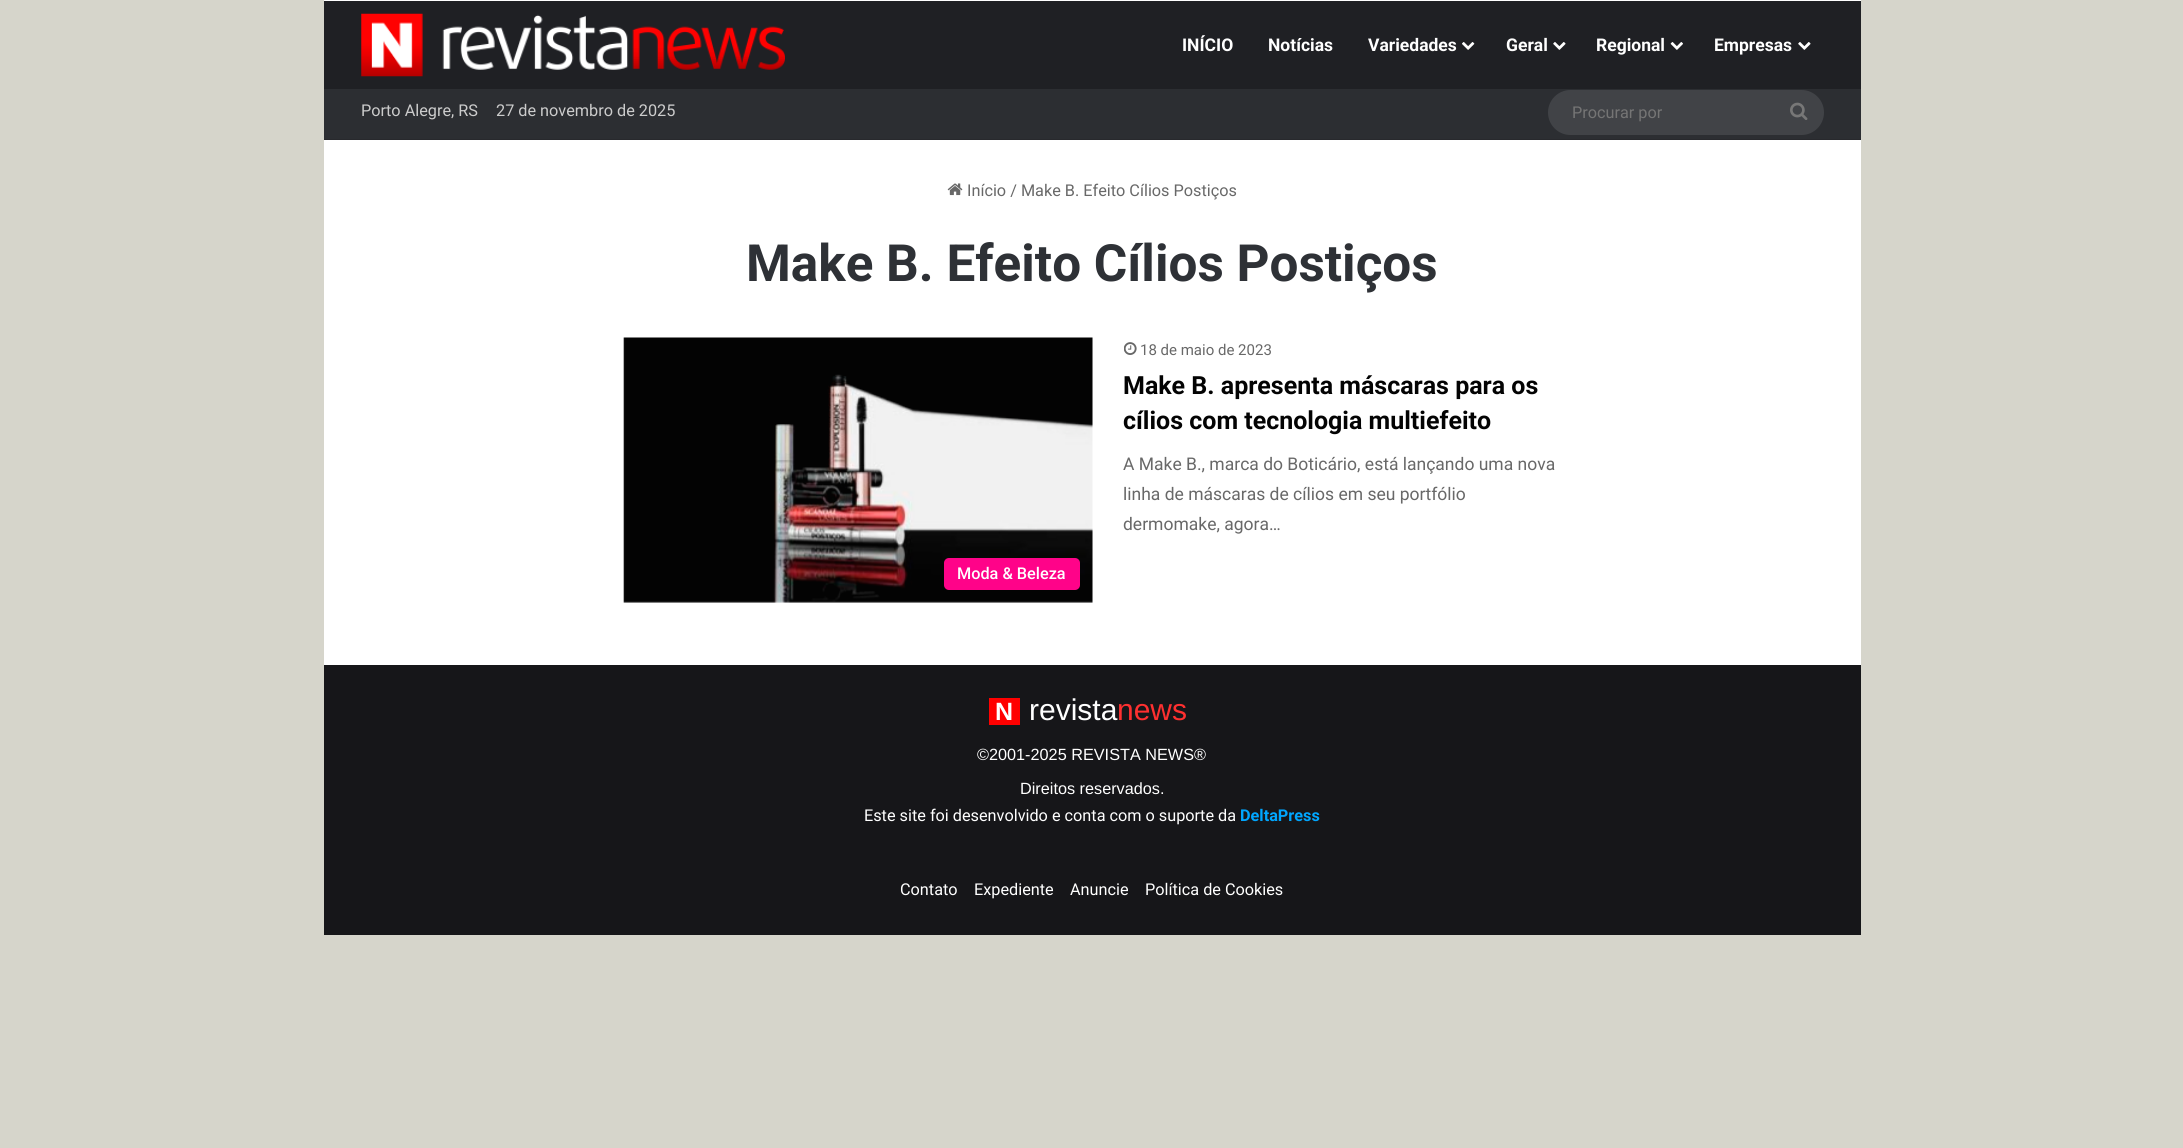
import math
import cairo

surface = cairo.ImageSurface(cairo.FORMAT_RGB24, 2183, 1148)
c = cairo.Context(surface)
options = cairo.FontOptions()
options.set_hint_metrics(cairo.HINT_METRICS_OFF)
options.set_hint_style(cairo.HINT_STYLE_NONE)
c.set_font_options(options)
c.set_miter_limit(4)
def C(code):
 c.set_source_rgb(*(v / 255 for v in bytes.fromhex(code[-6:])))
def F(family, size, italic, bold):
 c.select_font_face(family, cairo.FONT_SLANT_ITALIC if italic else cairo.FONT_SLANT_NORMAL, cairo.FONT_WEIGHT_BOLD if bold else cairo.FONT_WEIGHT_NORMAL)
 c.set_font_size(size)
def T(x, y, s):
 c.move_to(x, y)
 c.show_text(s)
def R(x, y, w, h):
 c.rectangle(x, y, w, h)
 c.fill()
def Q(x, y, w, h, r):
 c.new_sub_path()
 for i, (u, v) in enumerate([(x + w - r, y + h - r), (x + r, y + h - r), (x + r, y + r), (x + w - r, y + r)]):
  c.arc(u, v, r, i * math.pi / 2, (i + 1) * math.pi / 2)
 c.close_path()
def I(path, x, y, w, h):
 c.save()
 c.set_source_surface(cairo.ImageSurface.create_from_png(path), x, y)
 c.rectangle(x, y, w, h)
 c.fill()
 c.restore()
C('d6d5cb')
c.paint()
C('ffffff')
R(324,0,1537,665)
C('1f2024')
R(324,1,1537,88)
I('1.png',361,13,424,64)
F('Roboto',17.5,0,1)
C('ffffff')
T(1182,51,'INÍCIO')
T(1268,51,'Notícias')
T(1368,51,'Variedades')
I('2.png',1462,42,13,8)
T(1506,51,'Geral')
I('3.png',1553,42,13,8)
T(1596,51,'Regional')
I('4.png',1670,42,13,8)
T(1714,51,'Empresas')
I('3.png',1798,42,13,8)
C('2c2e32')
R(324,89,1537,50)
C('28292d')
R(324,139,1537,1)
F('Roboto',16.25,0,0)
C('cccccc')
T(361,116,'Porto Alegre, RS')
T(496,116,'27 de novembro de 2025')
C('414347')
Q(1548,90,276,45,22.5)
c.fill()
C('757575')
T(1572,118,'Procurar por')
I('5.png',1790,102,18,18)
I('6.png',947,183,16,13)
C('686868')
T(967,196,'Início / Make B. Efeito Cílios Postiços')
F('Roboto',51.25,0,1)
C('2e3136')
T(746,281,'Make B. Efeito Cílios Postiços')
I('7.png',1124,342,13,13)
F('Roboto',15,0,0)
C('686868')
T(1140,355,'18 de maio de 2023')
F('Roboto',25,0,1)
C('030303')
T(1123,394,'Make B. apresenta máscaras para os')
T(1123,429,'cílios com tecnologia multiefeito')
F('Roboto',17.5,0,0)
C('686868')
T(1123,470,'A Make B., marca do Boticário, está lançando uma nova')
T(1123,500,'linha de máscaras de cílios em seu portfólio')
T(1123,530,'dermomake, agora…')
I('8.png',623,337,470,266)
C('ff0389')
Q(944,558,136,32,5)
c.fill()
F('Roboto Medium',16.25,0,0)
C('ffffff')
T(957,579,'Moda & Beleza')
C('161619')
R(324,665,1537,270)
C('ff0000')
R(989,698,31,27)
F('Liberation Sans',25,0,1)
C('ffffff')
T(995,720,'N')
F('Liberation Sans',30,0,0)
T(1029,720,'revista')
C('ff3030')
T(1117,720,'news')
F('Liberation Sans',16.25,0,0)
C('ffffff')
T(977,760,'©2001-2025 REVISTA NEWS®')
T(1020,794,'Direitos reservados.')
F('Roboto',16.25,0,0)
T(864,821,'Este site foi desenvolvido e conta com o suporte da')
F('Roboto',16.25,0,1)
C('00a6ff')
T(1240,821,'DeltaPress')
F('Roboto',16.25,0,0)
C('ffffff')
T(900,895,'Contato')
T(974,895,'Expediente')
T(1070,895,'Anuncie')
T(1145,895,'Política de Cookies')
surface.write_to_png('o.png')
